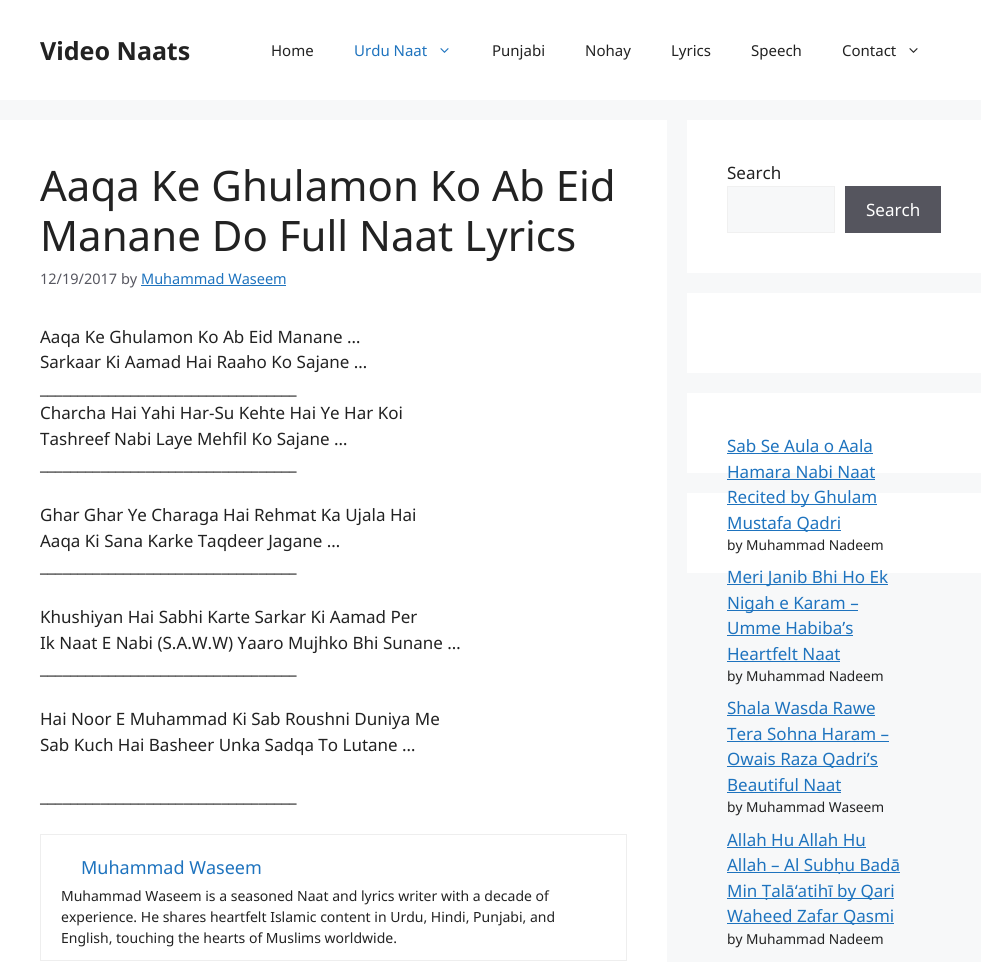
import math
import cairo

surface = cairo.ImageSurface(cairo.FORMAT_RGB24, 981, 962)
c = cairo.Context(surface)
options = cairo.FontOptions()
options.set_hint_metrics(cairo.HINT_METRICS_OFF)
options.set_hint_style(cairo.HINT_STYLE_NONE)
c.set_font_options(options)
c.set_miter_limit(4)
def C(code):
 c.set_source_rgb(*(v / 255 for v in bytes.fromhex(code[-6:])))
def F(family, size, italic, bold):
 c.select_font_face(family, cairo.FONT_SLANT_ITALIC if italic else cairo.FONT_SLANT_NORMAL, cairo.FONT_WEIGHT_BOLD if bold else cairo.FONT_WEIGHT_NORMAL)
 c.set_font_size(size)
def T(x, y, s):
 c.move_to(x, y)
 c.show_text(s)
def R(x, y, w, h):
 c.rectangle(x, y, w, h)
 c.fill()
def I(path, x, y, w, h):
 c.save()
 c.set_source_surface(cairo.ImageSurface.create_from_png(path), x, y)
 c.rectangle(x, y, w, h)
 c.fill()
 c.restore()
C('f7f8f9')
c.paint()
C('ffffff')
R(0,0,981,100)
F('Noto Sans',25,0,1)
C('222222')
T(40,60,'Video Naats')
F('Noto Sans',15,0,0)
T(271,56,'Home')
C('1e73be')
T(354,56,'Urdu Naat')
I('1.png',440,48,9,5)
C('222222')
T(492,56,'Punjabi')
T(585,56,'Nohay')
T(671,56,'Lyrics')
T(751,56,'Speech')
T(842,56,'Contact')
I('2.png',909,48,9,5)
C('ffffff')
R(0,120,667,842)
F('Noto Sans',42,0,0)
C('222222')
T(40,201,'Aaqa Ke Ghulamon Ko Ab Eid')
T(40,251,'Manane Do Full Naat Lyrics')
F('Noto Sans',14.5,0,0)
C('575760')
T(40,284,'12/19/2017 by')
C('1e73be')
T(141,284,'Muhammad Waseem')
R(141,285,145,1)
F('Noto Sans',17,0,0)
C('222222')
T(40,343,'Aaqa Ke Ghulamon Ko Ab Eid Manane …')
T(40,368,'Sarkaar Ki Aamad Hai Raaho Ko Sajane …')
T(40,394,'__________________________________')
T(40,419,'Charcha Hai Yahi Har-Su Kehte Hai Ye Har Koi')
T(40,445,'Tashreef Nabi Laye Mehfil Ko Sajane …')
T(40,470,'__________________________________')
T(40,521,'Ghar Ghar Ye Charaga Hai Rehmat Ka Ujala Hai')
T(40,547,'Aaqa Ki Sana Karke Taqdeer Jagane …')
T(40,572,'__________________________________')
T(40,623,'Khushiyan Hai Sabhi Karte Sarkar Ki Aamad Per')
T(40,649,'Ik Naat E Nabi (S.A.W.W) Yaaro Mujhko Bhi Sunane …')
T(40,674,'__________________________________')
T(40,725,'Hai Noor E Muhammad Ki Sab Roushni Duniya Me')
T(40,751,'Sab Kuch Hai Basheer Unka Sadqa To Lutane …')
T(40,802,'__________________________________')
c.rectangle(40.5,834.5,586,126)
C('eeeeee')
c.set_line_width(1)
c.stroke()
F('Noto Sans',18,0,0)
C('1e73be')
T(81,874,'Muhammad Waseem')
F('Noto Sans',14,0,0)
C('222222')
T(61,901,'Muhammad Waseem is a seasoned Naat and lyrics writer with a decade of')
T(61,922,'experience. He shares heartfelt Islamic content in Urdu, Hindi, Punjabi, and')
T(61,943,'English, touching the hearts of Muslims worldwide.')
C('ffffff')
R(687,120,294,153)
F('Noto Sans',17,0,0)
C('222222')
T(727,179,'Search')
C('f7f8f9')
c.rectangle(727.5,186.5,107,46)
c.fill_preserve()
C('f0f0f0')
c.stroke()
C('55555e')
R(845,186,96,47)
C('ffffff')
T(866,216,'Search')
R(687,293,294,80)
R(687,393,294,80)
C('1e73be')
T(727,452,'Sab Se Aula o Aala')
R(727,453,146,1)
T(727,478,'Hamara Nabi Naat')
R(727,479,148,1)
C('ffffff')
R(687,493,294,80)
C('1e73be')
R(727,504,150,1)
T(727,503,'Recited by Ghulam')
R(727,530,114,1)
T(727,529,'Mustafa Qadri')
F('Noto Sans',13.75,0,0)
C('222222')
T(727,550,'by Muhammad Nadeem')
C('1e73be')
R(727,584,161,1)
F('Noto Sans',17,0,0)
T(727,583,'Meri Janib Bhi Ho Ek')
R(727,610,131,1)
T(727,609,'Nigah e Karam –')
T(727,634,'Umme Habiba’s')
R(727,635,126,1)
T(727,660,'Heartfelt Naat')
R(727,661,113,1)
F('Noto Sans',13.75,0,0)
C('222222')
T(727,681,'by Muhammad Nadeem')
F('Noto Sans',17,0,0)
C('1e73be')
T(727,714,'Shala Wasda Rawe')
R(727,715,148,1)
T(727,740,'Tera Sohna Haram –')
R(727,741,162,1)
R(727,766,151,1)
T(727,765,'Owais Raza Qadri’s')
T(727,791,'Beautiful Naat')
R(727,792,114,1)
F('Noto Sans',13.75,0,0)
C('222222')
T(727,812,'by Muhammad Waseem')
F('Noto Sans',17,0,0)
C('1e73be')
T(727,846,'Allah Hu Allah Hu')
R(727,847,139,1)
R(727,872,173,1)
T(727,871,'Allah – Al Subḥu Badā')
R(727,898,167,1)
T(727,897,'Min Ṭalā‘atihī by Qari')
R(727,923,167,1)
T(727,922,'Waheed Zafar Qasmi')
F('Noto Sans',13.75,0,0)
C('222222')
T(727,944,'by Muhammad Nadeem')
surface.write_to_png('o.png')
